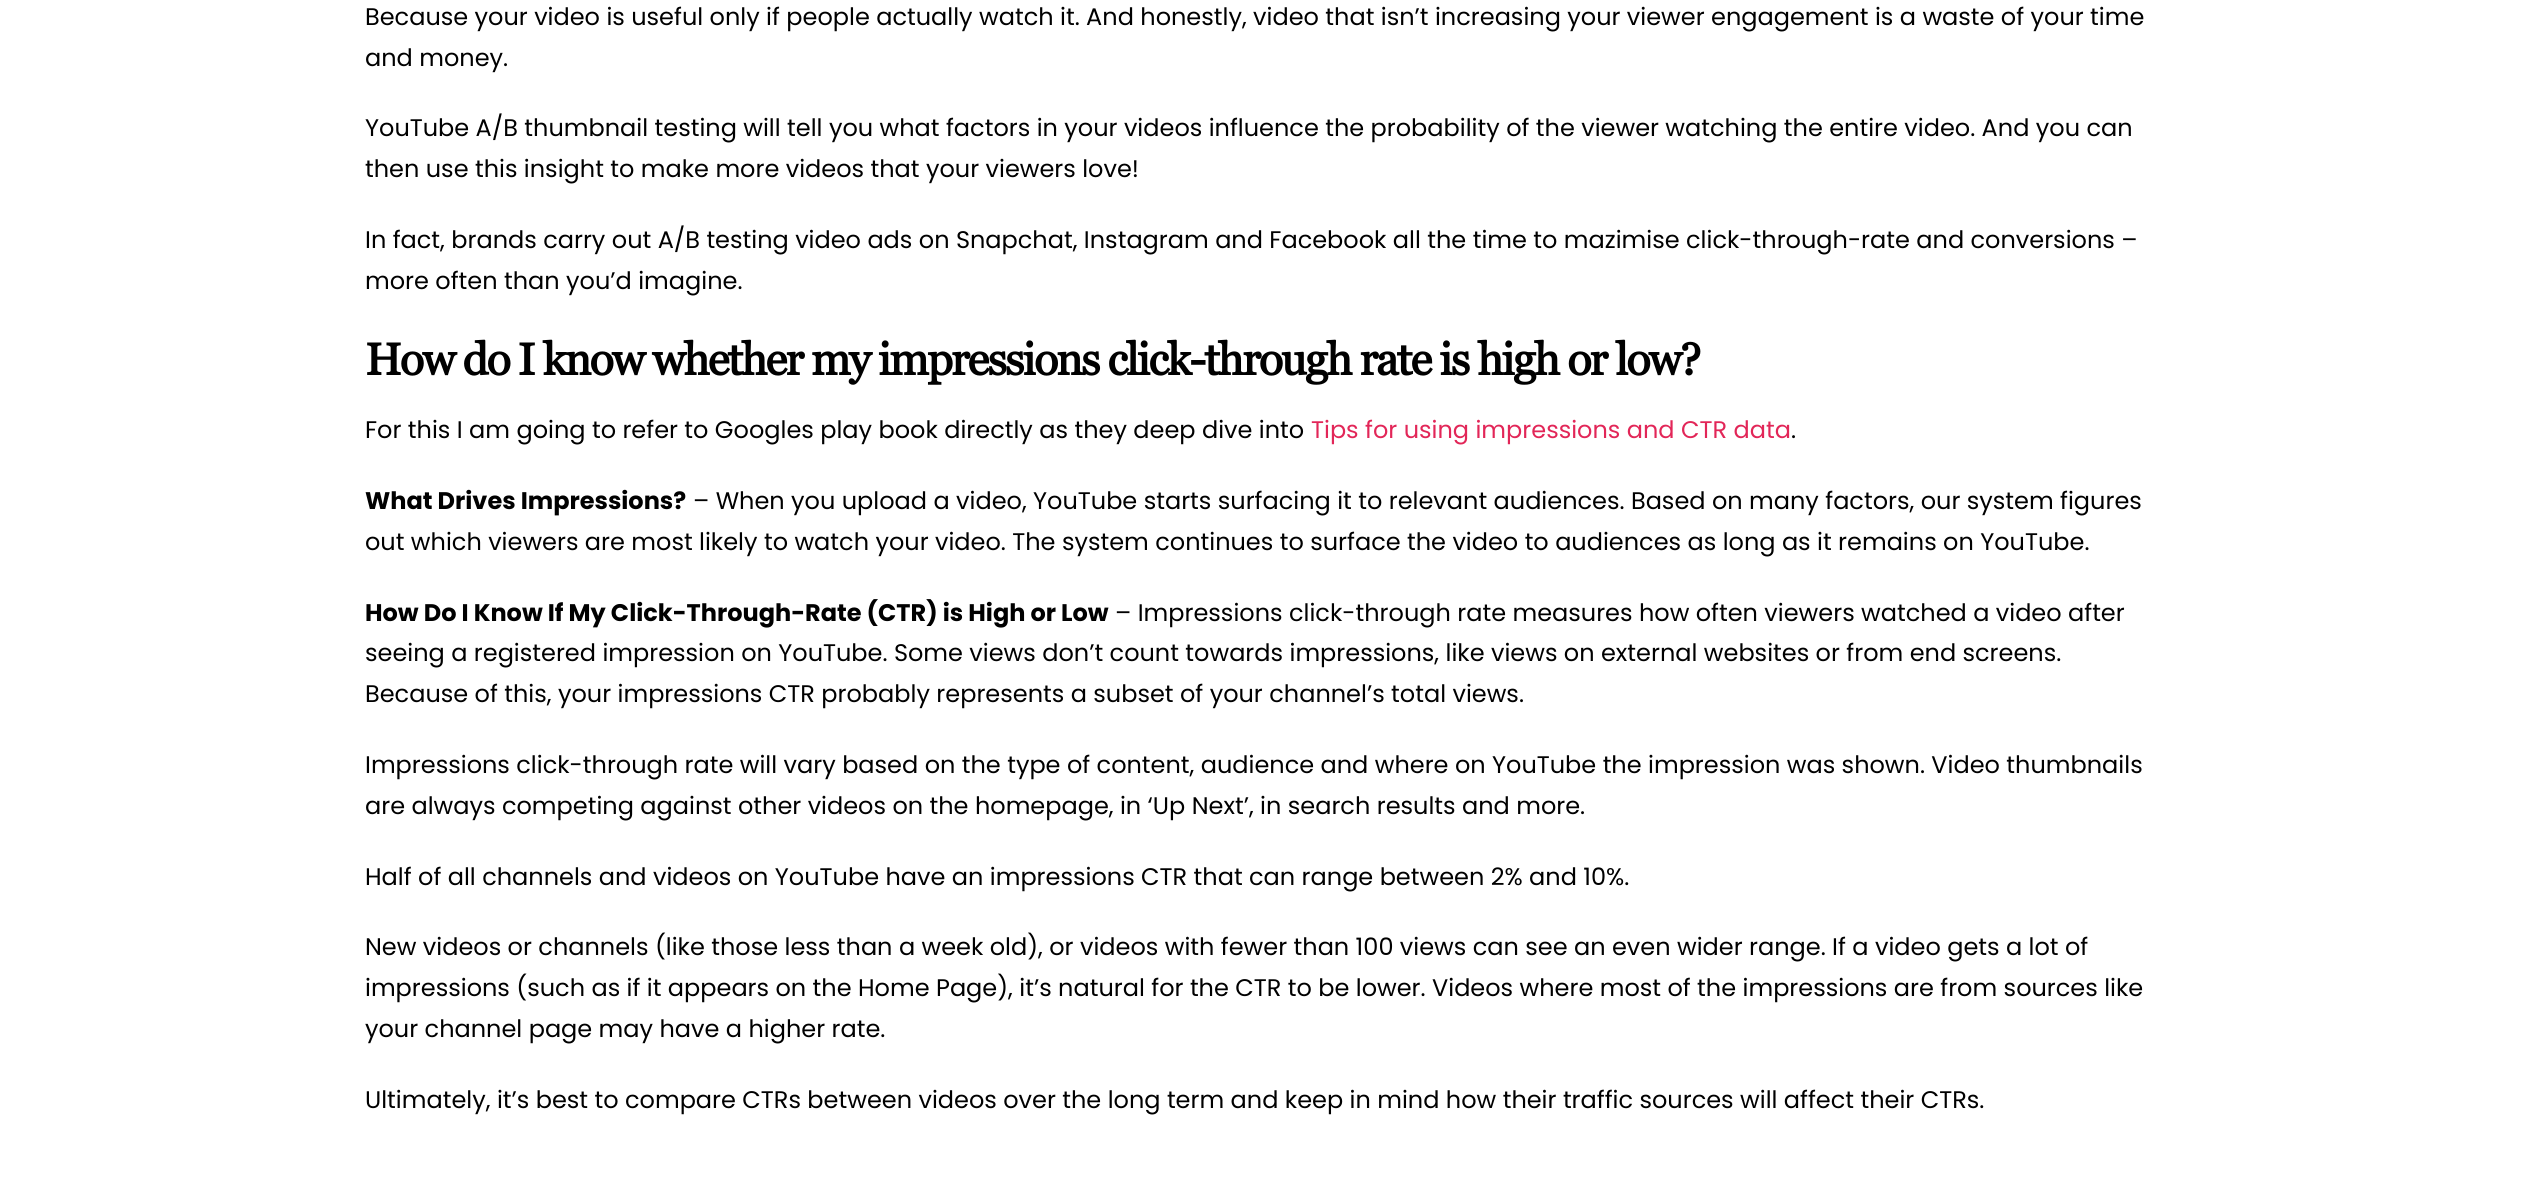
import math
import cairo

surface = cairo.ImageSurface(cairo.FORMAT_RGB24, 2530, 1199)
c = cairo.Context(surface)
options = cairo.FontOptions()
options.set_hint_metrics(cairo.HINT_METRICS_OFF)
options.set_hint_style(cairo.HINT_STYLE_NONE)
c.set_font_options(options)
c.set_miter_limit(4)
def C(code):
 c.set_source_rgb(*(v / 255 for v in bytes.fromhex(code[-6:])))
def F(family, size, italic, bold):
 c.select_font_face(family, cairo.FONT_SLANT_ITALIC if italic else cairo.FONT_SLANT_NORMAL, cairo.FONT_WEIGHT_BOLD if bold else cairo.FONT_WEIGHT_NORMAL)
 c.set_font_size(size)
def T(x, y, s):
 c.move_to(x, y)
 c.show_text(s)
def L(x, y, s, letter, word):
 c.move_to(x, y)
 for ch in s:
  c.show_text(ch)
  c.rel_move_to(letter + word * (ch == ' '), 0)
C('ffffff')
c.paint()
F('Poppins',24,0,0)
C('000000')
T(365,25,'Because your video is useful only if people actually watch it. And honestly, video that isn’t increasing your viewer engagement is a waste of your time')
T(365,66,'and money.')
T(365,136,'YouTube A/B thumbnail testing will tell you what factors in your videos influence the probability of the viewer watching the entire video. And you can')
T(365,177,'then use this insight to make more videos that your viewers love!')
T(365,248,'In fact, brands carry out A/B testing video ads on Snapchat, Instagram and Facebook all the time to mazimise click-through-rate and conversions –')
T(365,289,'more often than you’d imagine.')
F('Georgia',45,0,1)
L(365,375,'How do I know whether my impressions click-through rate is high or low?',-1.87,0)
F('Poppins',24,0,0)
T(365,438,'For this I am going to refer to Googles play book directly as they deep dive into')
C('e22658')
T(1311,438,'Tips for using impressions and CTR data')
C('000000')
T(1791,438,'.')
F('Poppins',24,0,1)
T(365,509,'What Drives Impressions?')
F('Poppins',24,0,0)
T(693,509,'– When you upload a video, YouTube starts surfacing it to relevant audiences. Based on many factors, our system figures')
T(365,550,'out which viewers are most likely to watch your video. The system continues to surface the video to audiences as long as it remains on YouTube.')
F('Poppins',24,0,1)
T(365,621,'How Do I Know If My Click-Through-Rate (CTR) is High or Low')
F('Poppins',24,0,0)
T(1115,621,'– Impressions click-through rate measures how often viewers watched a video after')
T(365,661,'seeing a registered impression on YouTube. Some views don’t count towards impressions, like views on external websites or from end screens.')
T(365,702,'Because of this, your impressions CTR probably represents a subset of your channel’s total views.')
T(365,773,'Impressions click-through rate will vary based on the type of content, audience and where on YouTube the impression was shown. Video thumbnails')
T(365,814,'are always competing against other videos on the homepage, in ‘Up Next’, in search results and more.')
T(365,885,'Half of all channels and videos on YouTube have an impressions CTR that can range between 2% and 10%.')
T(365,955,'New videos or channels (like those less than a week old), or videos with fewer than 100 views can see an even wider range. If a video gets a lot of')
T(365,996,'impressions (such as if it appears on the Home Page), it’s natural for the CTR to be lower. Videos where most of the impressions are from sources like')
T(365,1037,'your channel page may have a higher rate.')
T(365,1108,'Ultimately, it’s best to compare CTRs between videos over the long term and keep in mind how their traffic sources will affect their CTRs.')
surface.write_to_png('o.png')
